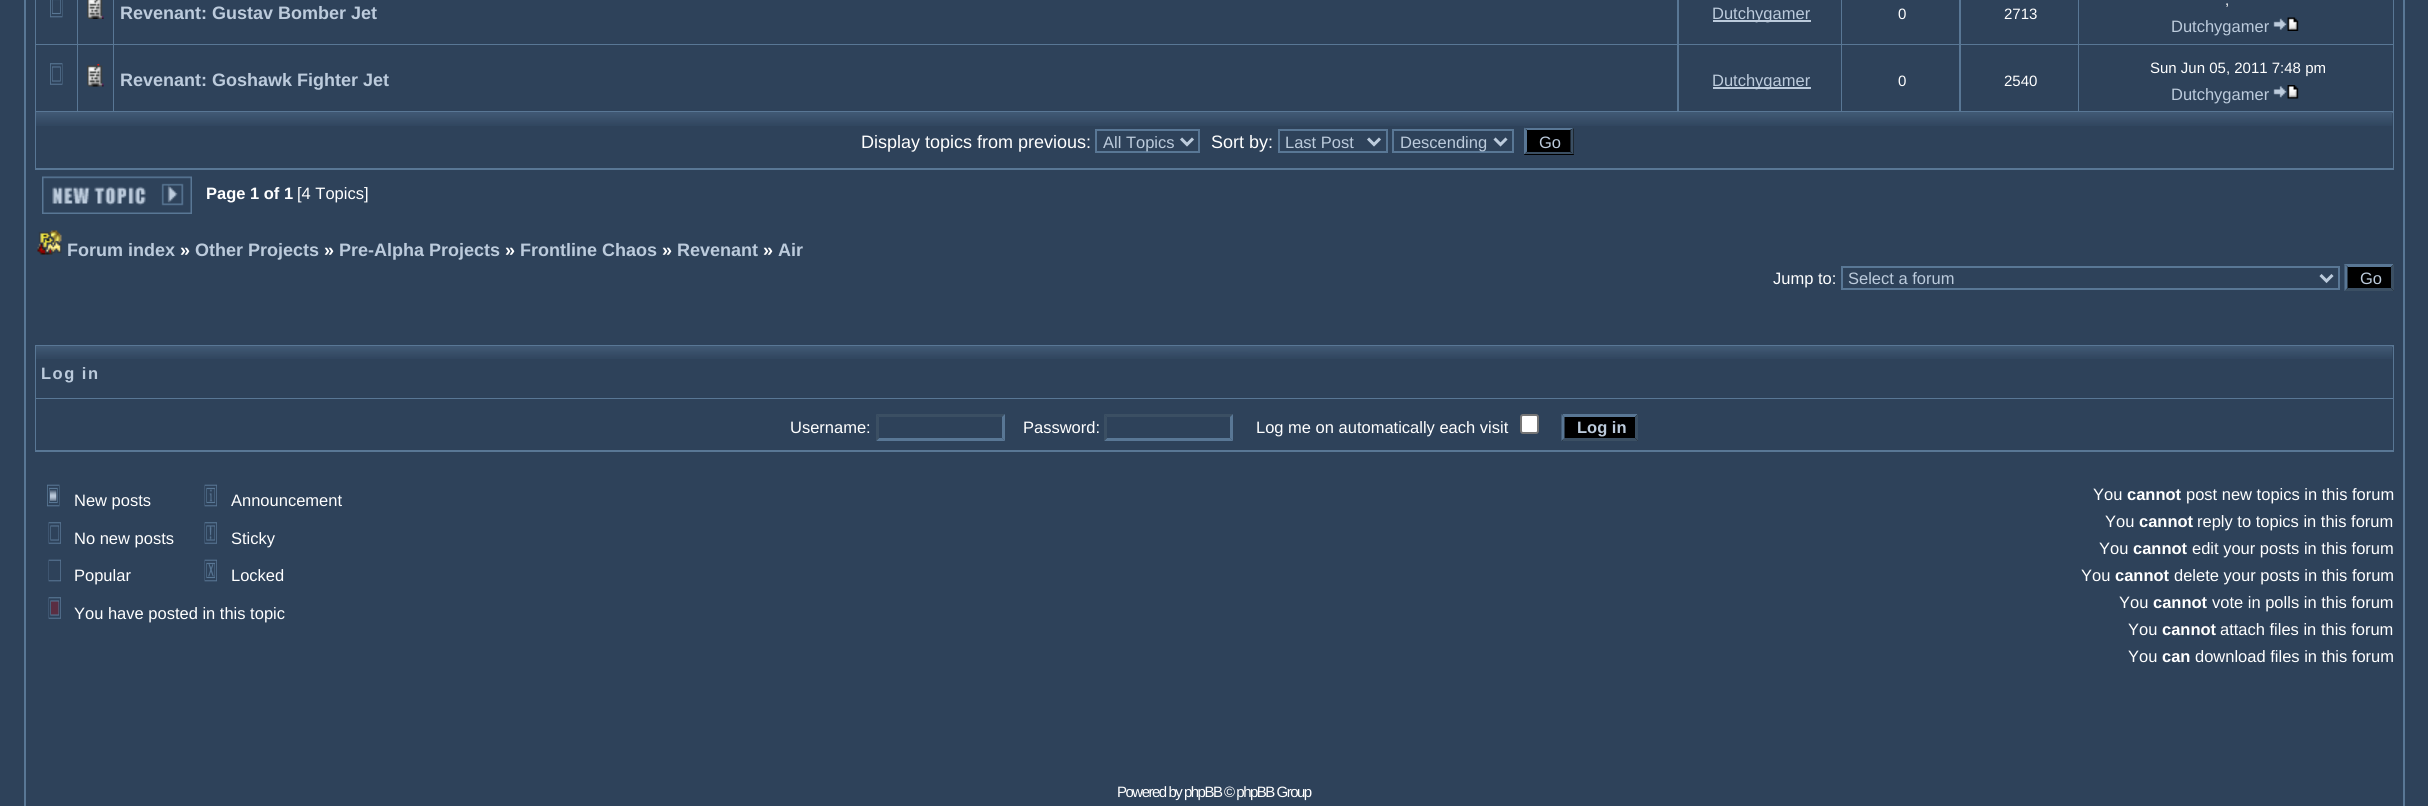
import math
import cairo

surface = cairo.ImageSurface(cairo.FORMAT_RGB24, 2428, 806)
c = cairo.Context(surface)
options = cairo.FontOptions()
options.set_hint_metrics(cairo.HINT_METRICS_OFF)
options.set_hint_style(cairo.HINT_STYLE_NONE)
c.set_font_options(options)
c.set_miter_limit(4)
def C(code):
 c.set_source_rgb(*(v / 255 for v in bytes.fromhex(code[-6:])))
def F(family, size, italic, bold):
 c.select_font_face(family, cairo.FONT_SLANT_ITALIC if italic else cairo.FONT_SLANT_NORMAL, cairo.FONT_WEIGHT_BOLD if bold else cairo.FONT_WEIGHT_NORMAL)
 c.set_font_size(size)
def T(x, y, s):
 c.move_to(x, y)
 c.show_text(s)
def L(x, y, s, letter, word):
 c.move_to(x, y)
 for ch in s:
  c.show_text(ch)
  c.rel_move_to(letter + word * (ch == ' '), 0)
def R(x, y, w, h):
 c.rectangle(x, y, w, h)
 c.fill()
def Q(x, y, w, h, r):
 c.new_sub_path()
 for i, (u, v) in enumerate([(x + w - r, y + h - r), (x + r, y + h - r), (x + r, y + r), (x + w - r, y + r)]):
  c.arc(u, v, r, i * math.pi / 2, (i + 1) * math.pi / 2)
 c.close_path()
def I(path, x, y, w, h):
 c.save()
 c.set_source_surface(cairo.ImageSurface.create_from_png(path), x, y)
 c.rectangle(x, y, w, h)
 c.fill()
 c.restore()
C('2e425a')
c.paint()
c.rectangle(25,-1,2379,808)
C('597795')
c.stroke()
R(35,0,2359,170)
C('2e425a')
R(36,0,41,44)
I('1.png',50,0,13,18)
R(78,0,35,44)
I('2.png',87,0,17,19)
R(114,0,1563,44)
F('Liberation Sans',18,0,1)
C('bccbdc')
T(120,19,'Revenant: Gustav Bomber Jet')
C('2e425a')
R(1679,0,162,44)
C('bccbdc')
R(1713,20,98,2)
F('Liberation Sans',16.5,0,0)
T(1712,19,'Dutchygamer')
C('2e425a')
R(1842,0,117,44)
F('Liberation Sans',15,0,0)
C('ffffff')
T(1898,19,'0')
C('2e425a')
R(1961,0,117,44)
C('ffffff')
T(2004,19,'2713')
C('2e425a')
R(2079,0,314,44)
C('ffffff')
T(2225,5,',')
F('Liberation Sans',16.5,0,0)
C('bccbdc')
T(2171,32,'Dutchygamer')
I('3.png',2273,17,26,14)
C('2e425a')
R(36,45,41,66)
I('4.png',50,63,13,22)
R(78,45,35,66)
I('5.png',87,64,17,23)
R(114,45,1563,66)
F('Liberation Sans',18,0,1)
C('bccbdc')
T(120,86,'Revenant: Goshawk Fighter Jet')
C('2e425a')
R(1679,45,162,66)
C('bccbdc')
R(1713,87,98,2)
F('Liberation Sans',16.5,0,0)
T(1712,86,'Dutchygamer')
C('2e425a')
R(1842,45,117,66)
F('Liberation Sans',15,0,0)
C('ffffff')
T(1898,86,'0')
C('2e425a')
R(1961,45,117,66)
C('ffffff')
T(2004,86,'2540')
C('2e425a')
R(2079,45,314,66)
C('ffffff')
T(2150,73,'Sun Jun 05, 2011 7:48 pm')
F('Liberation Sans',16.5,0,0)
C('bccbdc')
T(2171,100,'Dutchygamer')
I('6.png',2273,85,26,14)
C('2e425a')
R(36,113,2357,55)
I('7.png',36,112,2357,14)
F('Liberation Sans',18,0,0)
C('ffffff')
T(861,148,'Display topics from previous:')
c.rectangle(1096,130,103,22)
C('597795')
c.stroke()
c.new_path()
c.move_to(1181,138.5)
c.line_to(1187,144.5)
c.line_to(1193,138.5)
C('bccbdc')
c.set_line_width(3)
c.stroke()
F('Liberation Sans',16.5,0,0)
T(1103,148,'All Topics')
F('Liberation Sans',18,0,0)
C('ffffff')
T(1211,148,'Sort by:')
c.rectangle(1279,130,108,22)
C('597795')
c.set_line_width(2)
c.stroke()
c.new_path()
c.move_to(1368,138.5)
c.line_to(1374,144.5)
c.line_to(1380,138.5)
C('bccbdc')
c.set_line_width(3)
c.stroke()
F('Liberation Sans',16.5,0,0)
T(1285,148,'Last Post')
c.rectangle(1393,130,120,22)
C('597795')
c.set_line_width(2)
c.stroke()
c.new_path()
c.move_to(1494.5,138.5)
c.line_to(1500.5,144.5)
c.line_to(1506.5,138.5)
C('bccbdc')
c.set_line_width(3)
c.stroke()
T(1400,148,'Descending')
C('000000')
R(1524,128,50,27)
C('597795')
c.new_path()
c.move_to(1524,128)
c.line_to(1574,128)
c.line_to(1570,130)
c.line_to(1527,130)
c.close_path()
c.fill()
C('3b4f63')
c.new_path()
c.move_to(1573.5,127.5)
c.line_to(1573.5,154.5)
c.line_to(1570.5,151.5)
c.line_to(1570.5,130.5)
c.close_path()
c.fill()
c.new_path()
c.move_to(1574,154)
c.line_to(1524,154)
c.line_to(1527,152)
c.line_to(1570,152)
c.close_path()
c.fill()
C('597795')
c.new_path()
c.move_to(1524,154.5)
c.line_to(1524,127.5)
c.line_to(1527,130.5)
c.line_to(1527,151.5)
c.close_path()
c.fill()
C('bccbdc')
T(1539,148,'Go')
I('8.png',42,176,150,38)
F('Liberation Sans',16.5,0,1)
C('ffffff')
T(206,199,'Page 1 of 1')
F('Liberation Sans',16.5,0,0)
T(297,199,'[4 Topics]')
I('9.png',37,230,25,25)
F('Liberation Sans',18,0,1)
C('bccbdc')
T(67,256,'Forum index')
C('ffffff')
T(180,256,'»')
C('bccbdc')
T(195,256,'Other Projects')
C('ffffff')
T(324,256,'»')
C('bccbdc')
T(339,256,'Pre-Alpha Projects')
C('ffffff')
T(505,256,'»')
C('bccbdc')
T(520,256,'Frontline Chaos')
C('ffffff')
T(662,256,'»')
C('bccbdc')
T(677,256,'Revenant')
C('ffffff')
T(763,256,'»')
C('bccbdc')
T(778,256,'Air')
F('Liberation Sans',16.5,0,0)
C('ffffff')
T(1773,284,'Jump to:')
c.rectangle(1842,267,497,22)
C('597795')
c.set_line_width(2)
c.stroke()
c.new_path()
c.move_to(2320.5,275)
c.line_to(2326.5,281)
c.line_to(2332.5,275)
C('bccbdc')
c.set_line_width(3)
c.stroke()
T(1848,284,'Select a forum')
C('000000')
R(2345,264,49,27)
C('597795')
c.new_path()
c.move_to(2344,264)
c.line_to(2394,264)
c.line_to(2391,267)
c.line_to(2348,267)
c.close_path()
c.fill()
C('3b4f63')
c.new_path()
c.move_to(2394,264)
c.line_to(2394,291)
c.line_to(2391,288)
c.line_to(2391,267)
c.close_path()
c.fill()
c.new_path()
c.move_to(2394,291)
c.line_to(2344,291)
c.line_to(2348,288)
c.line_to(2391,288)
c.close_path()
c.fill()
C('597795')
c.new_path()
c.move_to(2344.5,291)
c.line_to(2344.5,264)
c.line_to(2347.5,267)
c.line_to(2347.5,288)
c.close_path()
c.fill()
C('bccbdc')
T(2360,284,'Go')
C('597795')
R(35,345,2359,107)
C('2e425a')
R(36,347,2357,51)
I('10.png',36,346,2357,13)
F('Liberation Sans',16.5,0,1)
C('bccbdc')
L(41,379,'Log in',1.5,0)
C('2e425a')
R(36,399,2357,51)
F('Liberation Sans',16.5,0,0)
C('ffffff')
T(790,433,'Username:')
C('3b4f63')
c.new_path()
c.move_to(876,414)
c.line_to(1005,414)
c.line_to(1002,417)
c.line_to(879,417)
c.close_path()
c.fill()
C('597795')
c.new_path()
c.move_to(1005,414)
c.line_to(1005,441)
c.line_to(1002,438)
c.line_to(1002,417)
c.close_path()
c.fill()
c.new_path()
c.move_to(1005,441)
c.line_to(876,441)
c.line_to(879,438)
c.line_to(1002,438)
c.close_path()
c.fill()
C('3b4f63')
c.new_path()
c.move_to(876,441)
c.line_to(876,414)
c.line_to(879,417)
c.line_to(879,438)
c.close_path()
c.fill()
C('ffffff')
T(1023,433,'Password:')
C('3b4f63')
c.new_path()
c.move_to(1104,414)
c.line_to(1233,414)
c.line_to(1230,417)
c.line_to(1107,417)
c.close_path()
c.fill()
C('597795')
c.new_path()
c.move_to(1233,414)
c.line_to(1233,441)
c.line_to(1230,438)
c.line_to(1230,417)
c.close_path()
c.fill()
c.new_path()
c.move_to(1233,441)
c.line_to(1104,441)
c.line_to(1107,438)
c.line_to(1230,438)
c.close_path()
c.fill()
C('3b4f63')
c.new_path()
c.move_to(1104,441)
c.line_to(1104,414)
c.line_to(1107,417)
c.line_to(1107,438)
c.close_path()
c.fill()
C('ffffff')
T(1256,433,'Log me on automatically each visit')
Q(1521,415,17,18,2)
c.fill_preserve()
C('767676')
c.set_line_width(2)
c.stroke()
C('000000')
R(1562,414,76,27)
C('597795')
c.new_path()
c.move_to(1562,414)
c.line_to(1638,414)
c.line_to(1635,417)
c.line_to(1564,417)
c.close_path()
c.fill()
C('3b4f63')
c.new_path()
c.move_to(1638,414)
c.line_to(1638,441)
c.line_to(1635,438)
c.line_to(1635,417)
c.close_path()
c.fill()
c.new_path()
c.move_to(1638,441)
c.line_to(1562,441)
c.line_to(1564,438)
c.line_to(1635,438)
c.close_path()
c.fill()
C('597795')
c.new_path()
c.move_to(1561.5,441)
c.line_to(1561.5,414)
c.line_to(1564.5,417)
c.line_to(1564.5,438)
c.close_path()
c.fill()
F('Liberation Sans',16.5,0,1)
C('bccbdc')
T(1577,433,'Log in')
I('11.png',47,484,13,23)
F('Liberation Sans',16.5,0,0)
C('ffffff')
T(74,506,'New posts')
I('12.png',204,484,13,23)
T(231,506,'Announcement')
I('13.png',48,522,13,22)
T(74,544,'No new posts')
I('14.png',204,522,13,22)
T(231,544,'Sticky')
I('15.png',48,559,13,23)
T(74,581,'Popular')
I('16.png',204,559,13,23)
T(231,581,'Locked')
I('17.png',48,597,13,22)
T(74,619,'You have posted in this topic')
T(2093,500,'You')
F('Liberation Sans',16.5,0,1)
T(2127,500,'cannot')
F('Liberation Sans',16.5,0,0)
T(2186,500,'post new topics in this forum')
T(2105,527,'You')
F('Liberation Sans',16.5,0,1)
T(2139,527,'cannot')
F('Liberation Sans',16.5,0,0)
T(2197,527,'reply to topics in this forum')
T(2099,554,'You')
F('Liberation Sans',16.5,0,1)
T(2133,554,'cannot')
F('Liberation Sans',16.5,0,0)
T(2192,554,'edit your posts in this forum')
T(2081,581,'You')
F('Liberation Sans',16.5,0,1)
T(2115,581,'cannot')
F('Liberation Sans',16.5,0,0)
T(2174,581,'delete your posts in this forum')
T(2119,608,'You')
F('Liberation Sans',16.5,0,1)
T(2153,608,'cannot')
F('Liberation Sans',16.5,0,0)
T(2212,608,'vote in polls in this forum')
T(2128,635,'You')
F('Liberation Sans',16.5,0,1)
T(2162,635,'cannot')
F('Liberation Sans',16.5,0,0)
T(2220,635,'attach files in this forum')
T(2128,662,'You')
F('Liberation Sans',16.5,0,1)
T(2162,662,'can')
F('Liberation Sans',16.5,0,0)
T(2195,662,'download files in this forum')
F('Liberation Sans',15,0,0)
L(1117,797,'Powered by phpBB © phpBB Group',-1.5,0)
surface.write_to_png('o.png')
